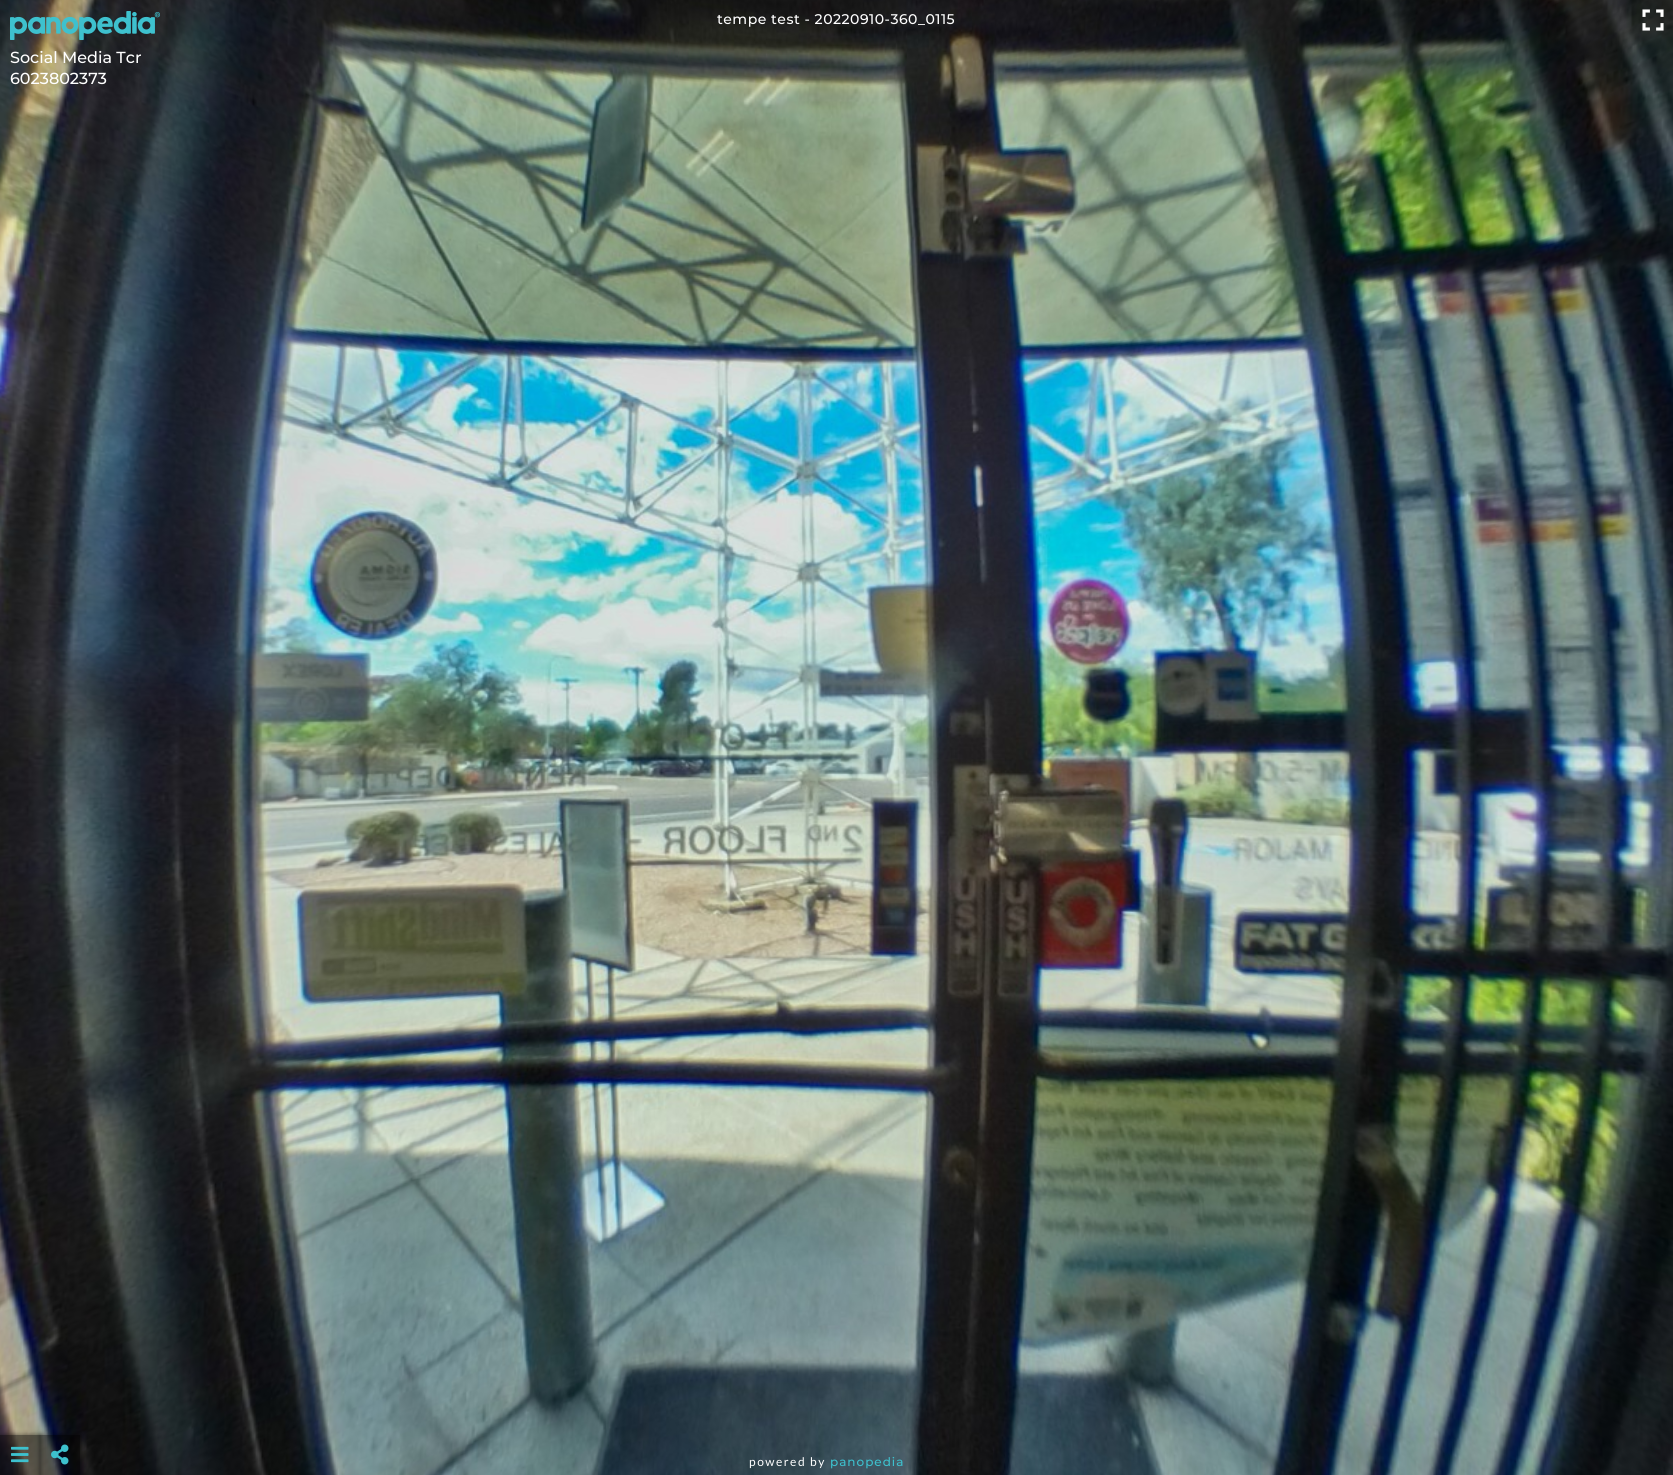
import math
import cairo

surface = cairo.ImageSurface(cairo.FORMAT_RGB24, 1673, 1475)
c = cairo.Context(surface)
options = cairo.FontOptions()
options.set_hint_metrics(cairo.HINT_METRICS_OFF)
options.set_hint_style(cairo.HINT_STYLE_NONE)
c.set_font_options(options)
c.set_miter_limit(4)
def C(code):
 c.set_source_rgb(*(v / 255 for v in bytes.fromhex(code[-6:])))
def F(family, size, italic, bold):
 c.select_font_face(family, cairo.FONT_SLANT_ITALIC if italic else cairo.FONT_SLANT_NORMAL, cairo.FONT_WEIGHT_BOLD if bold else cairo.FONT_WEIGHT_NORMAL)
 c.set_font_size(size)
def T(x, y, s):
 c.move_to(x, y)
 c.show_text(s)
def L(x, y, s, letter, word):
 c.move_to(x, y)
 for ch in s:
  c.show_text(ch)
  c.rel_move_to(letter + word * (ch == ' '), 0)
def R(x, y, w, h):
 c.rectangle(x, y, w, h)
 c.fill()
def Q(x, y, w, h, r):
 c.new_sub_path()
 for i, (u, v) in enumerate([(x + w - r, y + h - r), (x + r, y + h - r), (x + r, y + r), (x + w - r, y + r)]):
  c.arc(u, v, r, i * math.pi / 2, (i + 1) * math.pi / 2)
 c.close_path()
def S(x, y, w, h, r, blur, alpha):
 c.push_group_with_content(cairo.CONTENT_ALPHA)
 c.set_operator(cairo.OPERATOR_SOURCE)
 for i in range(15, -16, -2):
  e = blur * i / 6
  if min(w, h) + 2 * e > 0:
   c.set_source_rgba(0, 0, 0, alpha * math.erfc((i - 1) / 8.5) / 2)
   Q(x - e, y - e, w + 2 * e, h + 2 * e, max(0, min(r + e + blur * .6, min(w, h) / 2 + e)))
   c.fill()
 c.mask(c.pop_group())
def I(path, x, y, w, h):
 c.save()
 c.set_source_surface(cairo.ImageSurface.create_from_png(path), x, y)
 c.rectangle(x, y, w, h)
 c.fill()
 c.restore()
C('ffffff')
c.paint()
I('1.png',0,0,1673,1475)
F('Montserrat Medium',14,0,0)
C('ffffff')
L(717,24,'tempe test - 20220910-360_0115',.5,0)
I('2.png',1642,9,22,22)
I('3.png',10,11,150,29)
F('Montserrat Medium',16,0,0)
T(10,63,'Social Media Tcr')
T(10,84,'6023802373')
c.save()
c.set_fill_rule(cairo.FILL_RULE_EVEN_ODD)
c.new_path()
c.move_to(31,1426)
c.line_to(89,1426)
c.line_to(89,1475)
c.line_to(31,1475)
c.close_path()
c.move_to(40,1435)
c.line_to(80,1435)
c.line_to(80,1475)
c.line_to(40,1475)
c.close_path()
c.clip()
C('000000')
S(40,1435,40,40,0,2.5,.5)
c.restore()
c.set_source_rgba(0,0,0,0.5)
R(40,1435,40,40)
c.save()
c.set_fill_rule(cairo.FILL_RULE_EVEN_ODD)
c.new_path()
c.move_to(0,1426)
c.line_to(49,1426)
c.line_to(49,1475)
c.line_to(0,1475)
c.close_path()
c.move_to(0,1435)
c.line_to(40,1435)
c.line_to(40,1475)
c.line_to(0,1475)
c.close_path()
c.clip()
C('000000')
S(0,1435,40,40,0,2.5,.5)
c.restore()
R(0,1435,40,40)
I('4.png',11,1446,18,17)
I('5.png',51,1444,18,21)
F('Lato',12,0,0)
C('ffffff')
L(749,1466,'powered by',1.5,0)
F('Montserrat Medium',12,0,0)
C('3dc1ce')
L(830,1466,'panopedia',1,0)
surface.write_to_png('o.png')
